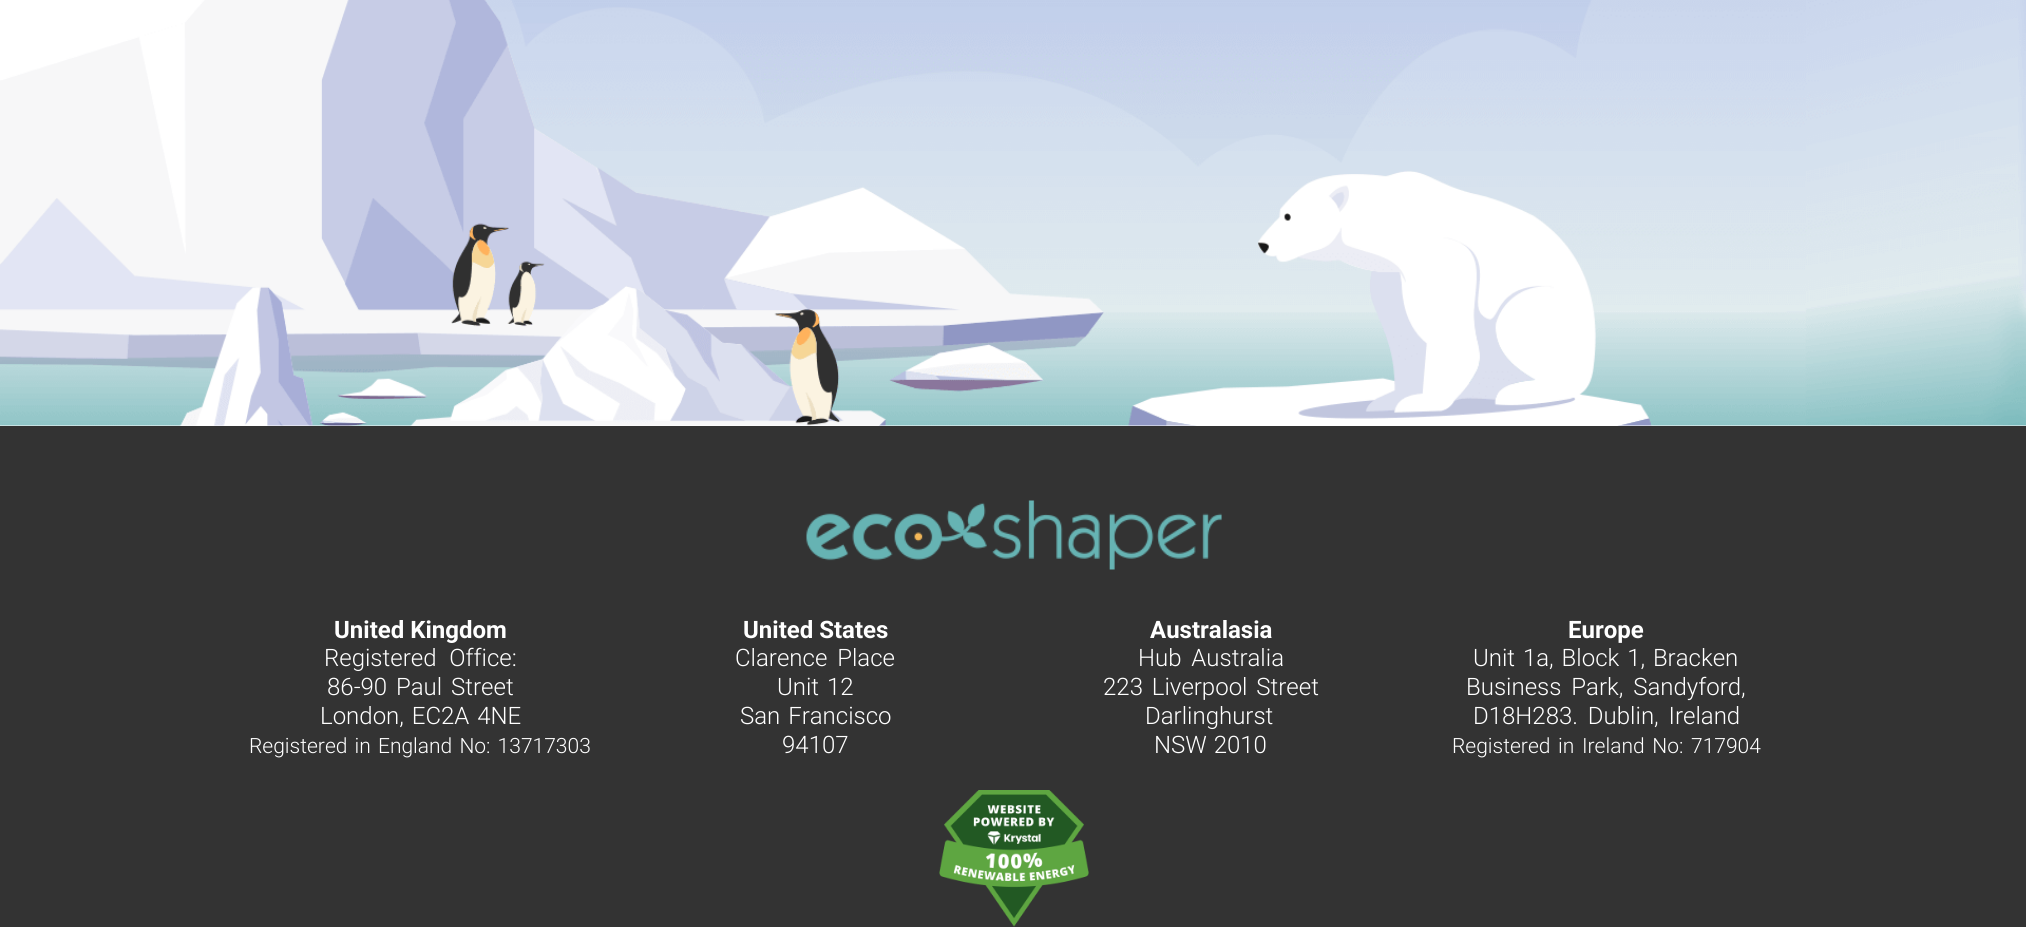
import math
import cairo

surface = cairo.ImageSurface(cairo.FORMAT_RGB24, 2026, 927)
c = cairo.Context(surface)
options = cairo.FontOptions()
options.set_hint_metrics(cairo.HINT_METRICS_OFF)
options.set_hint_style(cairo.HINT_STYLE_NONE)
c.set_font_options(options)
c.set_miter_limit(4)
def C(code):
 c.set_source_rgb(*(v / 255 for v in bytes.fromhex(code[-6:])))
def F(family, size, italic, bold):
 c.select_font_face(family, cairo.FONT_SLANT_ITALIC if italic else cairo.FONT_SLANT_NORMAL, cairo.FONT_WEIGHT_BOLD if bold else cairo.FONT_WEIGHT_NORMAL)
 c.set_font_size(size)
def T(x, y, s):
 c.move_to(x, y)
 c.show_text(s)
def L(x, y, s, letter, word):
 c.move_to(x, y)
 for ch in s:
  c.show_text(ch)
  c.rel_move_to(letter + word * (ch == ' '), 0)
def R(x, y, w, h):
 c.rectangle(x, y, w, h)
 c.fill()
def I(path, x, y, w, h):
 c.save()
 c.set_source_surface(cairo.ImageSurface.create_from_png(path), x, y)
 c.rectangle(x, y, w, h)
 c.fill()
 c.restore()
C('ffffff')
c.paint()
I('1.png',0,0,2026,426)
C('333333')
R(0,426,2026,501)
I('2.png',806,500,416,70)
F('Roboto',24,0,1)
C('ffffff')
T(334,638,'United Kingdom')
F('Roboto Light',24,0,0)
L(324,666,'Registered Office:',0,7)
L(327,695,'86-90 Paul Street',0,3)
L(320,724,'London, EC2A 4NE',0,2)
F('Roboto Light',21,0,0)
L(249,753,'Registered in England No: 13717303',0,2)
F('Roboto',24,0,1)
T(743,638,'United States')
F('Roboto Light',24,0,0)
L(735,666,'Clarence Place',0,4)
L(777,695,'Unit 12',0,2)
L(740,724,'San Francisco',0,2)
T(782,753,'94107')
F('Roboto',24,0,1)
T(1150,638,'Australasia')
F('Roboto Light',24,0,0)
L(1138,666,'Hub Australia',0,4)
L(1103,695,'223 Liverpool Street',0,3)
T(1145,724,'Darlinghurst')
L(1154,753,'NSW 2010',0,1)
F('Roboto',24,0,1)
T(1568,638,'Europe')
F('Roboto Light',24,0,0)
L(1473,666,'Unit 1a, Block 1, Bracken',0,2)
L(1466,695,'Business Park, Sandyford,',0,4)
L(1473,724,'D18H283. Dublin, Ireland',0,4)
F('Roboto Light',21,0,0)
L(1452,753,'Registered in Ireland No: 717904',0,2.5)
I('3.png',939,790,150,137)
surface.write_to_png('o.png')
